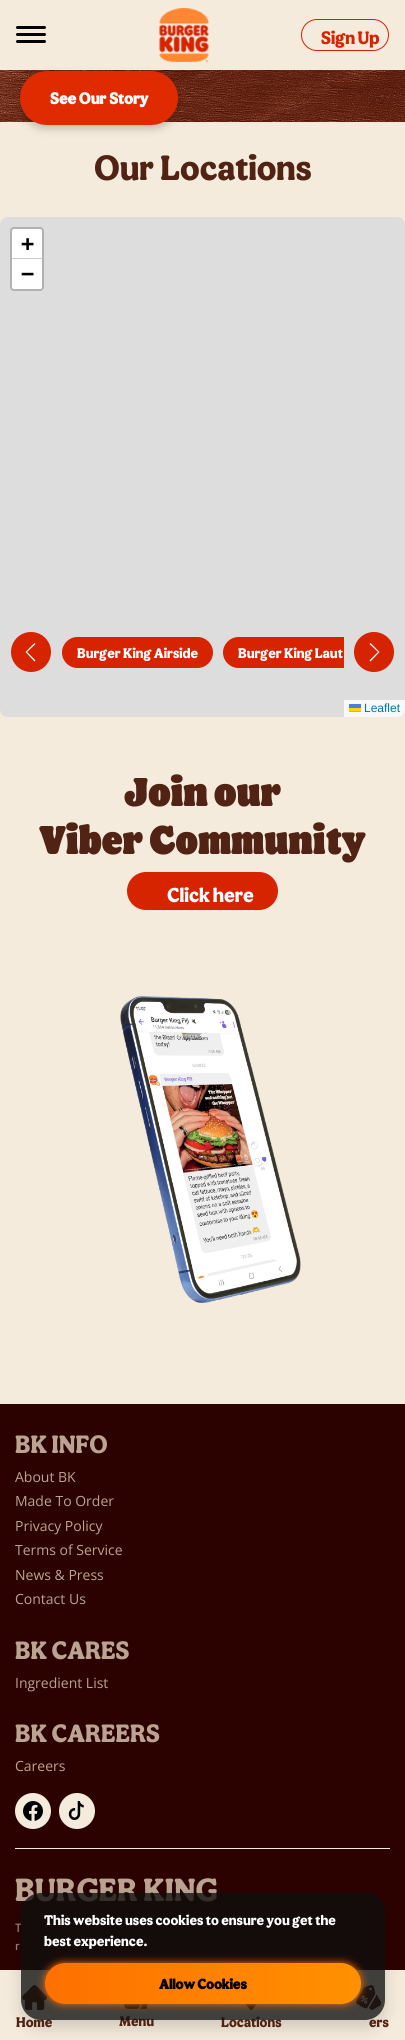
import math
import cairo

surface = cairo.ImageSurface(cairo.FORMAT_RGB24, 405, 2040)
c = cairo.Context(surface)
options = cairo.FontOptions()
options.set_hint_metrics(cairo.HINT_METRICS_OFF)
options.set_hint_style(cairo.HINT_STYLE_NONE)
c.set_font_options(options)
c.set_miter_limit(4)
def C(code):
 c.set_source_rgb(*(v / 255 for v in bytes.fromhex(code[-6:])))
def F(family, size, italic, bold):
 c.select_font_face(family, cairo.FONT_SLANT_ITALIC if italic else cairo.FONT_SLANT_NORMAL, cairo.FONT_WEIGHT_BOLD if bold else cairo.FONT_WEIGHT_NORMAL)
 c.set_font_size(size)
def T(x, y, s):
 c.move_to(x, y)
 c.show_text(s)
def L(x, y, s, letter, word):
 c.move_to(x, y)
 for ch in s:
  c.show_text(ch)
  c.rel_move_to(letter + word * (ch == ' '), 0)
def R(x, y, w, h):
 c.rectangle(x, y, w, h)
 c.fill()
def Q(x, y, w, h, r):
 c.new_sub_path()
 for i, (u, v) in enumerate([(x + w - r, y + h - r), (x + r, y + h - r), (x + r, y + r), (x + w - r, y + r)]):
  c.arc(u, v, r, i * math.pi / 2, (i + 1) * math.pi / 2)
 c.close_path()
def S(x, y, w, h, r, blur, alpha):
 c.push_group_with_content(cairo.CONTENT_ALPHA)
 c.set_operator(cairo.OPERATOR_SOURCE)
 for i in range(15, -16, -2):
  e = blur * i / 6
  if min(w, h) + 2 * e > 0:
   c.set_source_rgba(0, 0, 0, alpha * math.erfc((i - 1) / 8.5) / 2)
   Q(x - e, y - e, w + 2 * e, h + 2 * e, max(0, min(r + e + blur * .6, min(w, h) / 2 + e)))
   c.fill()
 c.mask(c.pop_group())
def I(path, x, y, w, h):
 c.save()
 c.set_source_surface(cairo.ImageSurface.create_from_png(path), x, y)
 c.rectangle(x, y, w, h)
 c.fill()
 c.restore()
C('f5ebdc')
c.paint()
I('2.png',0,70,405,52)
C('000000')
S(20,75,158,54,27,4,.2)
C('f5ebdc')
R(40,69,118,1)
C('000000')
Q(16,26,30,3,1.5)
c.fill()
Q(16,33,30,3,1.5)
c.fill()
Q(16,40,30,3,1.5)
c.fill()
I('1.png',158,8,51,54)
Q(301.5,19.5,87,31,15.5)
C('d62300')
c.set_line_width(1)
c.stroke()
F('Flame',18,0,0)
L(321,44,'Sign Up',0,-1)
C('e02b00')
Q(20,71,158,54,27)
c.fill()
F('Flame',16,0,1)
C('ffffff')
T(50,104,'See Our Story')
F('Flame',35,0,0)
C('502314')
T(94,180,'Our Locations')
C('dddddd')
Q(0,217,405,500,8)
c.fill()
Q(11,228,32,62,3)
C('b1b1b1')
c.set_line_width(2)
c.stroke()
C('ffffff')
c.new_path()
c.move_to(14,229)
c.line_to(40,229)
c.curve_to(41,229,42,230,42,231)
c.line_to(42,259)
c.line_to(12,259)
c.line_to(12,231)
c.curve_to(12,230,13,229,14,229)
c.close_path()
c.fill()
C('cccccc')
R(12,258,30,1)
F('DejaVu Sans Mono',22,0,1)
C('000000')
T(21,251,'+')
C('ffffff')
c.new_path()
c.move_to(12,259)
c.line_to(42,259)
c.line_to(42,287)
c.curve_to(42,288,41,289,40,289)
c.line_to(14,289)
c.curve_to(13,289,12,288,12,287)
c.close_path()
c.fill()
C('000000')
T(21,281,'−')
c.set_source_rgba(1,1,1,0.8)
c.new_path()
c.move_to(344,700)
c.line_to(405,700)
c.line_to(405,709)
c.curve_to(405,713.5,401.5,717,397,717)
c.line_to(344,717)
c.close_path()
c.fill()
F('Liberation Sans',12,0,0)
C('0078a8')
T(364,712,'Leaflet')
C('4c7be1')
R(349,704,12,4)
C('ffd500')
R(349,708,12,3)
C('e0bc00')
R(349,711,12,1)
C('d62300')
c.new_path()
c.arc(31,652,20,0,2 * math.pi)
c.fill()
C('ffffff')
c.new_path()
c.move_to(27,652)
c.line_to(35.5,660.5)
c.line_to(34.5,661.5)
c.line_to(25.5,652)
c.line_to(34.5,643)
c.line_to(35.5,644)
c.close_path()
c.fill()
C('d62300')
c.arc(374,652,20,0,2 * math.pi)
c.fill()
C('ffffff')
c.new_path()
c.move_to(379.5,652)
c.line_to(370.5,661.5)
c.line_to(369.5,660.5)
c.line_to(378,652)
c.line_to(369.5,644)
c.line_to(370.5,643)
c.close_path()
c.fill()
C('d62300')
Q(62,637,151,31,15.5)
c.fill()
F('Flame',14,0,0)
C('ffffff')
T(77,658,'Burger King Airside')
C('d62300')
c.new_path()
c.move_to(238.5,637)
c.line_to(344,637)
c.line_to(344,668)
c.line_to(238.5,668)
c.curve_to(230,668,223,661,223,652.5)
c.curve_to(223,644,230,637,238.5,637)
c.close_path()
c.fill()
C('ffffff')
T(238,658,'Burger King Laut')
F('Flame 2',40,0,1)
C('502314')
T(124,806,'Join our')
T(39,854,'Viber Community')
C('d62300')
Q(127,872,151,38,19)
c.fill()
F('Flame',20,0,0)
C('ffffff')
L(167,902,'Click here',0,-1)
I('3.png',120,996,181,307)
C('2b0200')
R(0,1404,405,566)
F('Flame',25,0,0)
C('bba391')
T(15,1453,'BK INFO')
F('Open Sans',14,0,0)
T(15,1482,'About BK')
T(15,1506,'Made To Order')
T(15,1531,'Privacy Policy')
T(15,1555,'Terms of Service')
T(15,1580,'News & Press')
T(15,1604,'Contact Us')
F('Flame',25,0,0)
T(15,1659,'BK CARES')
F('Open Sans',14,0,0)
T(15,1688,'Ingredient List')
F('Flame',25,0,0)
T(15,1742,'BK CAREERS')
F('Open Sans',14,0,0)
T(15,1771,'Careers')
C('f4ebdc')
c.new_path()
c.arc(33,1811,18,0,2 * math.pi)
c.fill()
I('4.png',23,1801,20,20)
c.arc(77,1811,18,0,2 * math.pi)
c.fill()
I('5.png',68,1801,16,19)
C('f5ebdc')
R(15,1848,375,1)
F('Flame',32,0,0)
C('bba391')
T(15,1901,'BURGER KING')
F('Flame Medium',12,0,0)
C('9e8374')
T(15,1932,'T')
T(15,1950,'r')
I('6.png',22,1985,25,25)
I('7.png',124,2004,24,5)
I('8.png',245,2004,12,6)
I('9.png',356,1985,25,25)
c.save()
c.set_fill_rule(cairo.FILL_RULE_EVEN_ODD)
c.new_path()
c.move_to(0,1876)
c.line_to(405,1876)
c.line_to(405,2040)
c.line_to(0,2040)
c.close_path()
c.move_to(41,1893)
c.line_to(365,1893)
c.curve_to(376,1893,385,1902,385,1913)
c.line_to(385,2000)
c.curve_to(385,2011,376,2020,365,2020)
c.line_to(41,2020)
c.curve_to(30,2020,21,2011,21,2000)
c.line_to(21,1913)
c.curve_to(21,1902,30,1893,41,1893)
c.close_path()
c.clip()
C('000000')
S(21,1901,364,127,20,8,.15)
c.restore()
F('Flame',14,0,0)
C('502314')
T(16,2027,'Home')
T(119,2026,'Menu')
T(221,2027,'Locations')
T(369,2027,'ers')
c.set_source_rgba(0.059,0.059,0.059,0.78)
Q(21,1893,364,127,20)
c.fill()
C('ffffff')
T(44,1925,'This website uses cookies to ensure you get the')
T(44,1946,'best experience.')
C('fe7000')
S(45,1963,316,41,20.5,4,1)
gradient = cairo.LinearGradient(45,1984,361,1984)
gradient.add_color_stop_rgba(0,0.996,0.439,0,1)
gradient.add_color_stop_rgba(1,1,0.569,0,1)
c.set_source(gradient)
Q(45,1963,316,41,20.5)
c.fill()
F('Flame',14,0,1)
C('000000')
T(159,1989,'Allow Cookies')
surface.write_to_png('o.png')
